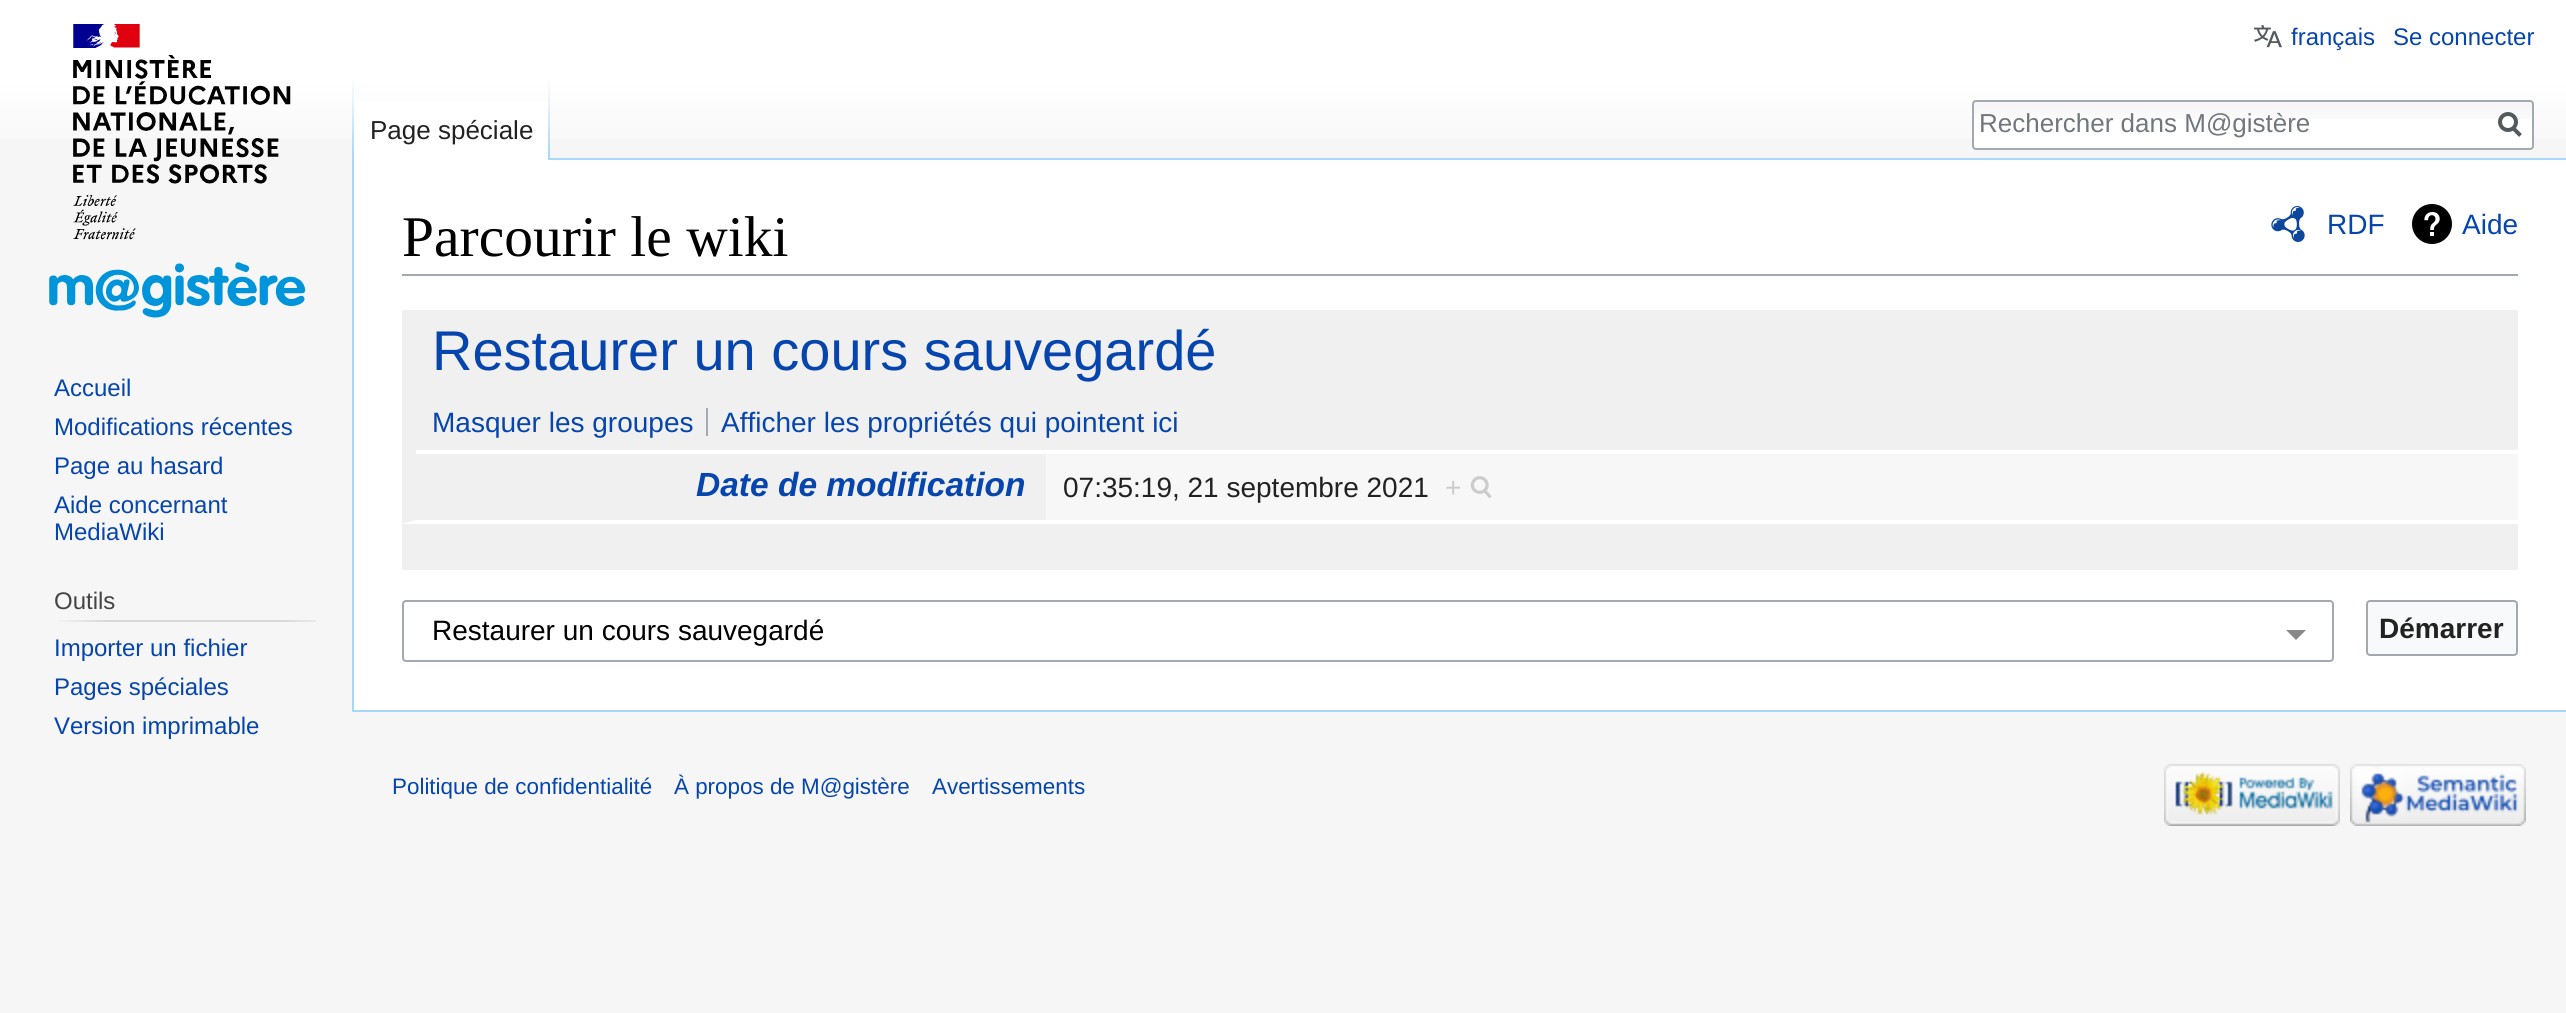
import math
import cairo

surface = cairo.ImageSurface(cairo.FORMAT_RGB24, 2566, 1013)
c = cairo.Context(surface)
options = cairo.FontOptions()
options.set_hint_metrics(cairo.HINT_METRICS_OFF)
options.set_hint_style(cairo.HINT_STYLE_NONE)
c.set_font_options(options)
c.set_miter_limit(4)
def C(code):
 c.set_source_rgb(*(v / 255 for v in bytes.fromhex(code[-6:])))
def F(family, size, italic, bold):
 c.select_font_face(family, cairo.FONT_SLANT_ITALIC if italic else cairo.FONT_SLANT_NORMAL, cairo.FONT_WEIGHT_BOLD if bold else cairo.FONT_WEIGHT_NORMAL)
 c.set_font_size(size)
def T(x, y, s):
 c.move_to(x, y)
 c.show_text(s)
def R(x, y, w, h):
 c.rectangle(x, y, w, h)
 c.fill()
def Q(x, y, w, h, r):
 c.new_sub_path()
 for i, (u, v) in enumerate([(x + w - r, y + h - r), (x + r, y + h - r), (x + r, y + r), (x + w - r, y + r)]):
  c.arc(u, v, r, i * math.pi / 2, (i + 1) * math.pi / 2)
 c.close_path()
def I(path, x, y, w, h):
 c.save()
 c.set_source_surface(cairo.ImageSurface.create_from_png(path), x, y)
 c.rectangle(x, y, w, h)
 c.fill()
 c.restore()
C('f6f6f6')
c.paint()
gradient = cairo.LinearGradient(1283,0,1283,160)
gradient.add_color_stop_rgba(.5,1,1,1,1)
gradient.add_color_stop_rgba(1,0.965,0.965,0.965,1)
c.set_source(gradient)
R(0,0,2566,138)
I('1.png',2254,24,28,24)
F('Liberation Sans',24,0,0)
C('0645ad')
T(2291,45,'français')
T(2393,45,'Se connecter')
I('2.png',352,80,2,78)
C('ffffff')
R(354,102,194,58)
I('3.png',548,80,2,80)
F('Liberation Sans',26,0,0)
C('222222')
T(370,139,'Page spéciale')
C('ffffff')
Q(1972,100,562,50,4)
c.fill()
I('4.png',1972,102,562,17)
Q(1973,101,560,48,3)
C('a2a9b1')
c.stroke()
C('72777d')
T(1979,132,'Rechercher dans M@gistère')
c.new_path()
c.move_to(2520.5,135.5)
c.line_to(2512.5,127.5)
C('54595d')
c.set_line_width(4)
c.stroke()
c.arc(2508,122,8,0,2 * math.pi)
c.stroke()
I('5.png',49,24,257,294)
F('Liberation Sans',24,0,0)
C('0645ad')
T(54,396,'Accueil')
T(54,435,'Modifications récentes')
T(54,474,'Page au hasard')
T(54,513,'Aide concernant')
T(54,540,'MediaWiki')
C('444444')
T(54,609,'Outils')
I('6.png',59,620,257,2)
C('0645ad')
T(54,656,'Importer un fichier')
T(54,695,'Pages spéciales')
T(54,734,'Version imprimable')
C('ffffff')
R(354,160,2212,550)
C('a7d7f9')
R(550,158,2016,2)
R(352,710,2214,2)
R(352,158,2,554)
C('a2a9b1')
R(402,274,2116,2)
F('Liberation Serif',57.5,0,0)
C('000000')
T(402,256,'Parcourir le wiki')
I('7.png',2271,206,34,36)
F('Liberation Sans',28,0,0)
C('0645ad')
T(2327,234,'RDF')
I('8.png',2412,204,40,40)
T(2462,234,'Aide')
C('f0f0f0')
R(402,310,2116,84)
F('Liberation Sans',56,0,0)
C('0645ad')
T(432,370,'Restaurer un cours sauvegardé')
C('f0f0f0')
R(402,394,2116,56)
F('Liberation Sans',28,0,0)
C('0645ad')
T(432,432,'Masquer les groupes')
C('a2a9b1')
R(706,408,2,28)
C('0645ad')
T(721,432,'Afficher les propriétés qui pointent ici')
C('f0f0f0')
c.new_path()
c.move_to(402,524)
c.line_to(402,450)
c.line_to(416,450)
c.line_to(416,520)
c.close_path()
c.fill()
R(416,454,630,66)
F('Liberation Sans',33.5,1,1)
C('0645ad')
T(696,496,'Date de modification')
C('f7f7f7')
R(1046,454,1472,66)
F('Liberation Sans',28,0,0)
C('222222')
T(1063,497,'07:35:19, 21 septembre 2021')
C('cccccc')
T(1445,497,'+')
I('9.png',1470,476,22,22)
C('f0f0f0')
R(402,524,2116,46)
C('888888')
c.new_path()
c.move_to(2286,630)
c.line_to(2296,640)
c.line_to(2306,630)
c.close_path()
c.fill()
Q(403,601,1930,60,3)
C('a2a9b1')
c.set_line_width(2)
c.stroke()
C('000000')
T(432,640,'Restaurer un cours sauvegardé')
C('f8f9fa')
Q(2367,601,150,54,3)
c.fill_preserve()
C('a2a9b1')
c.stroke()
F('Liberation Sans',28,0,1)
C('222222')
T(2379,638,'Démarrer')
F('Liberation Sans',22.4,0,0)
C('0645ad')
T(392,794,'Politique de confidentialité')
T(674,794,'À propos de M@gistère')
T(932,794,'Avertissements')
I('10.png',2164,764,176,62)
I('11.png',2350,764,176,62)
surface.write_to_png('o.png')
